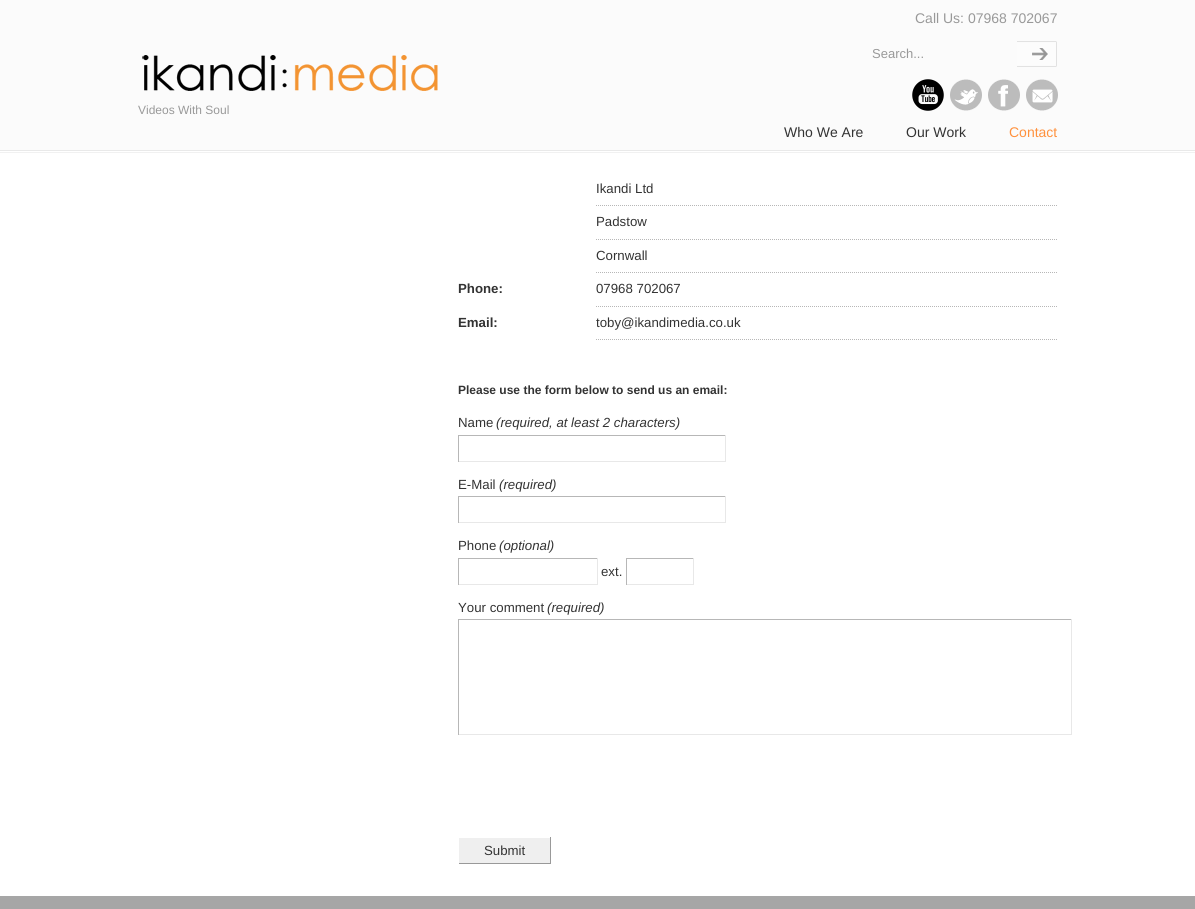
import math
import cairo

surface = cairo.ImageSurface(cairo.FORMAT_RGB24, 1195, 909)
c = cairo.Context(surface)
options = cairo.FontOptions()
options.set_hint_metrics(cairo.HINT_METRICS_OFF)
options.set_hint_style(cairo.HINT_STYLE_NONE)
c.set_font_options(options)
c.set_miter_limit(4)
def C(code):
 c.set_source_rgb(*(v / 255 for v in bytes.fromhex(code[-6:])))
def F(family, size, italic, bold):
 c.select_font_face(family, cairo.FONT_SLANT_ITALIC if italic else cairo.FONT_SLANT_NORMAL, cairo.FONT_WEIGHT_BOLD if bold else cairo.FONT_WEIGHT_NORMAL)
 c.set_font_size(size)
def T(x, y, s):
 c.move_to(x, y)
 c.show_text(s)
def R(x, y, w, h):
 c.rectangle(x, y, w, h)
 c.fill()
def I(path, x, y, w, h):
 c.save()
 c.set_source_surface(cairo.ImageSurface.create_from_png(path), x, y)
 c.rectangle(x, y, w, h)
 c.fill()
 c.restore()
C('fbfbfb')
c.paint()
F('Liberation Sans',14,0,0)
C('999999')
T(915,23,'Call Us: 07968 702067')
F('Liberation Sans',13,0,0)
T(872,58,'Search...')
I('1.png',1017,41,40,26)
I('2.png',142,55,296,36)
F('Liberation Sans',12,0,0)
T(138,114,'Videos With Soul')
I('3.png',912,79,32,32)
I('4.png',950,79,32,32)
I('5.png',988,79,32,32)
I('6.png',1026,79,32,32)
C('e9e9e9')
R(0,150,1195,1)
F('Liberation Sans',14,0,0)
C('333333')
T(784,137,'Who We Are')
T(906,137,'Our Work')
C('ff913d')
T(1009,137,'Contact')
C('ffffff')
R(0,151,1195,745)
I('7.png',0,152,1195,1)
c.new_path()
c.move_to(596,205.5)
c.line_to(1058,205.5)
C('b7b7b7')
c.set_line_width(1)
c.set_dash([1,1])
c.stroke()
F('Liberation Sans',13.25,0,0)
C('333333')
T(596,193,'Ikandi Ltd')
c.new_path()
c.move_to(596,239.5)
c.line_to(1058,239.5)
C('b7b7b7')
c.stroke()
C('333333')
T(596,226,'Padstow')
c.new_path()
c.move_to(596,272.5)
c.line_to(1058,272.5)
C('b7b7b7')
c.stroke()
C('333333')
T(596,260,'Cornwall')
F('Liberation Sans',13.25,0,1)
T(458,293,'Phone:')
c.new_path()
c.move_to(596,306.5)
c.line_to(1058,306.5)
C('b7b7b7')
c.stroke()
F('Liberation Sans',13.25,0,0)
C('333333')
T(596,293,'07968 702067')
F('Liberation Sans',13.25,0,1)
T(458,327,'Email:')
c.new_path()
c.move_to(596,339.5)
c.line_to(1058,339.5)
C('b7b7b7')
c.stroke()
F('Liberation Sans',13.25,0,0)
C('333333')
T(596,327,'toby@ikandimedia.co.uk')
F('Liberation Sans',12,0,1)
T(458,394,'Please use the form below to send us an email:')
F('Liberation Sans',13.25,0,0)
T(458,427,'Name')
F('Liberation Sans',13.25,1,0)
T(496,427,'(required, at least 2 characters)')
C('b7b7b7')
R(458,435,268,1)
C('e8e8e8')
R(725,435,1,27)
R(458,461,268,1)
C('b7b7b7')
R(458,435,1,27)
F('Liberation Sans',13.25,0,0)
C('333333')
T(458,489,'E-Mail')
F('Liberation Sans',13.25,1,0)
T(499,489,'(required)')
C('b7b7b7')
R(458,496,268,1)
C('e8e8e8')
R(725,496,1,27)
R(458,522,268,1)
C('b7b7b7')
R(458,496,1,27)
F('Liberation Sans',13.25,0,0)
C('333333')
T(458,550,'Phone')
F('Liberation Sans',13.25,1,0)
T(499,550,'(optional)')
C('b7b7b7')
R(458,558,140,1)
C('e8e8e8')
R(597,558,1,27)
R(458,584,140,1)
C('b7b7b7')
R(458,558,1,27)
F('Liberation Sans',13.25,0,0)
C('333333')
T(601,576,'ext.')
C('b7b7b7')
R(626,558,68,1)
C('e8e8e8')
R(693,558,1,27)
R(626,584,68,1)
C('b7b7b7')
R(626,558,1,27)
C('333333')
T(458,612,'Your comment')
F('Liberation Sans',13.25,1,0)
T(547,612,'(required)')
C('b7b7b7')
R(458,619,614,1)
C('e8e8e8')
R(1071,619,1,116)
R(458,734,614,1)
C('b7b7b7')
R(458,619,1,116)
C('efefef')
R(459,838,91,25)
C('999999')
R(550,837,1,27)
R(458,863,93,1)
C('ffffff')
R(458,863,1,1)
F('Liberation Sans',13.25,0,0)
C('333333')
T(484,855,'Submit')
C('a6a6a6')
R(0,896,1195,13)
surface.write_to_png('o.png')
